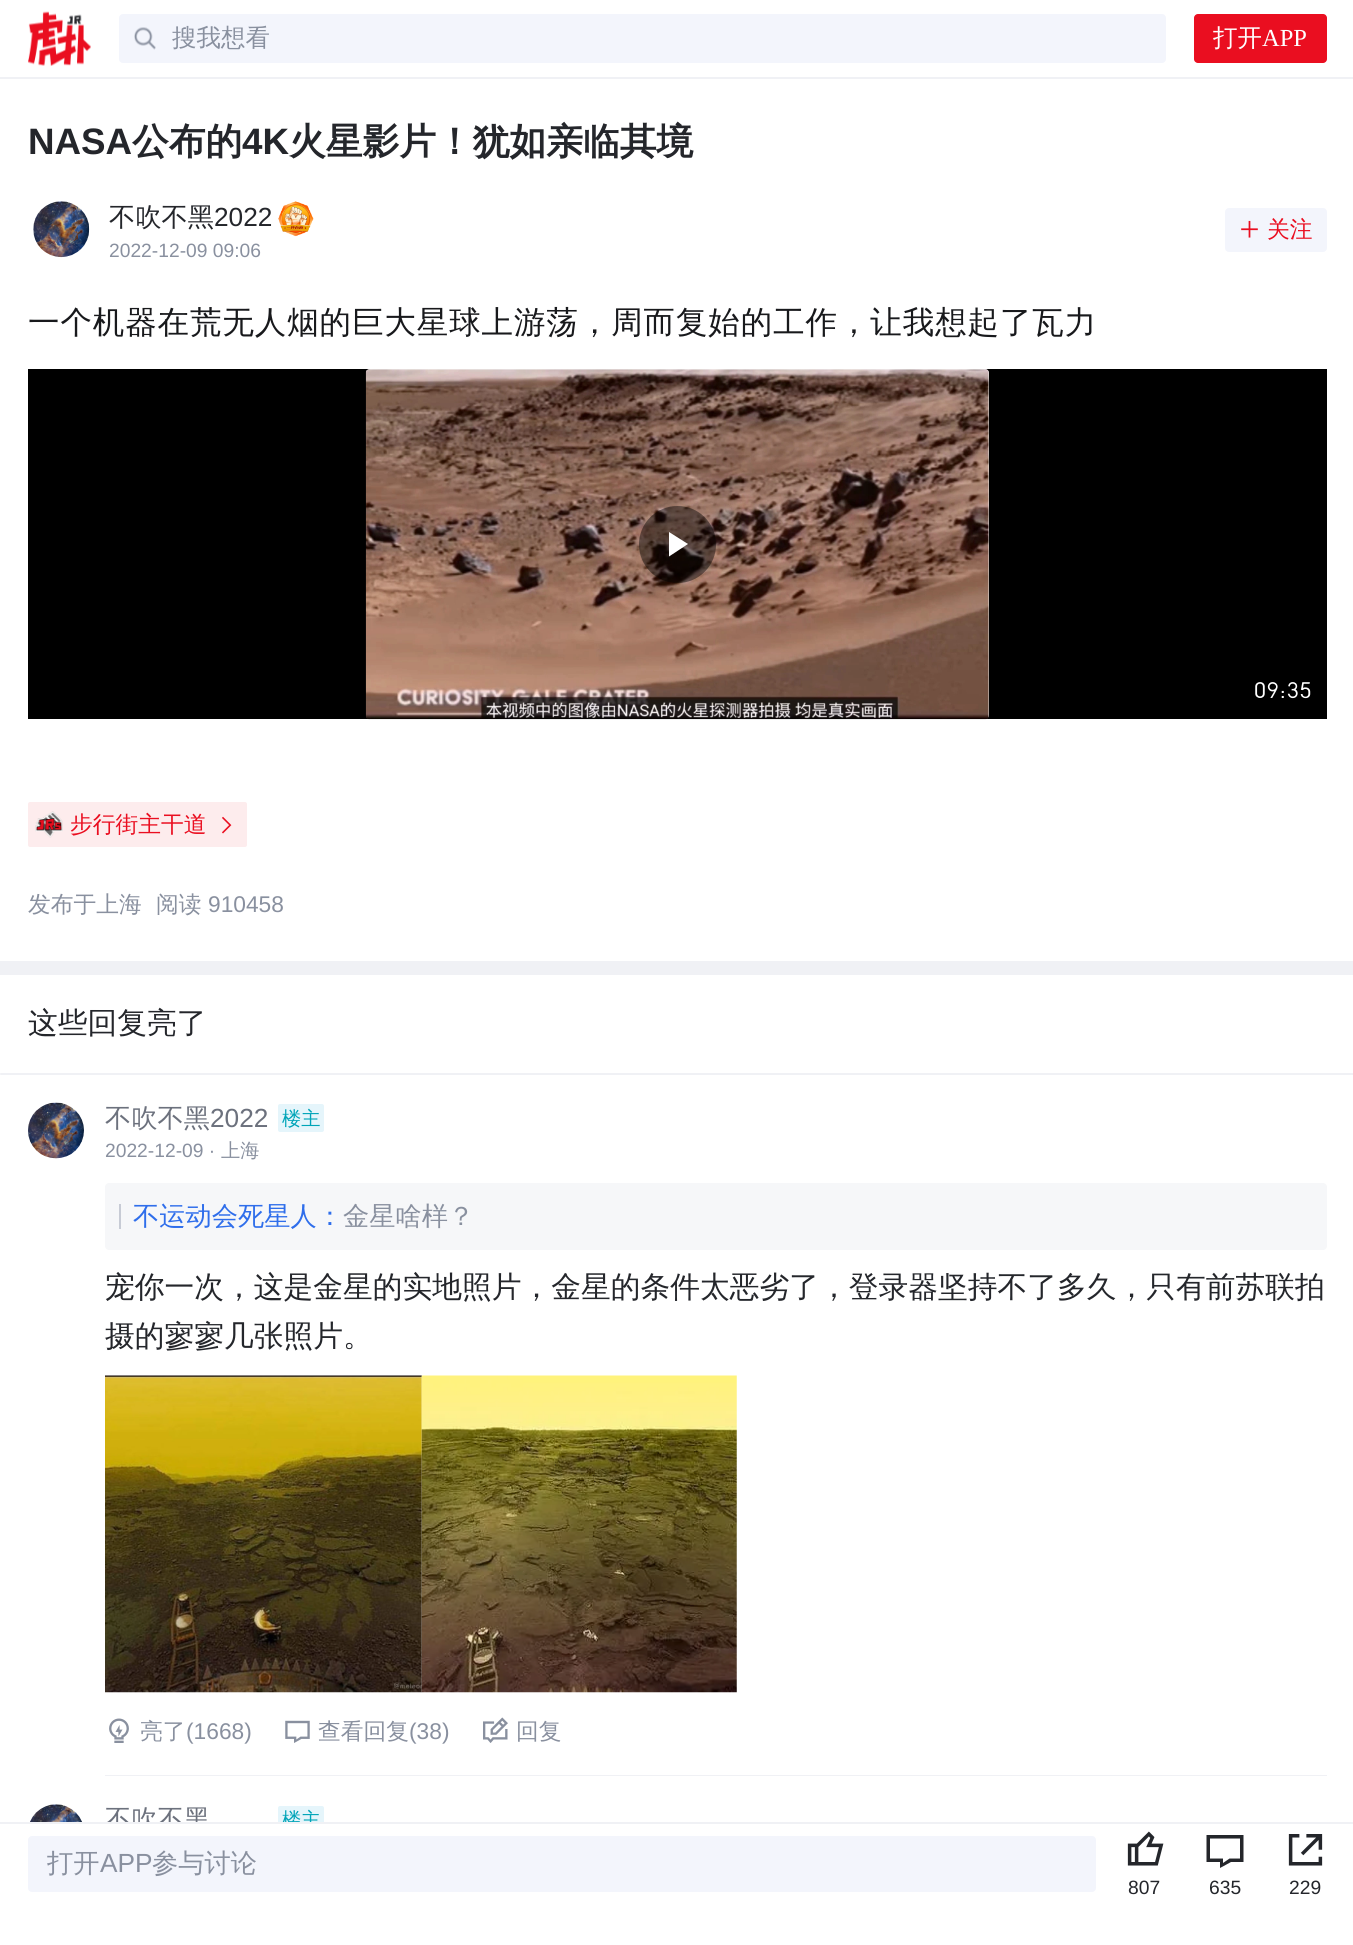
import math
import cairo

surface = cairo.ImageSurface(cairo.FORMAT_RGB24, 1353, 1945)
c = cairo.Context(surface)
options = cairo.FontOptions()
options.set_hint_metrics(cairo.HINT_METRICS_OFF)
options.set_hint_style(cairo.HINT_STYLE_NONE)
c.set_font_options(options)
c.set_miter_limit(4)
def C(code):
 c.set_source_rgb(*(v / 255 for v in bytes.fromhex(code[-6:])))
def F(family, size, italic, bold):
 c.select_font_face(family, cairo.FONT_SLANT_ITALIC if italic else cairo.FONT_SLANT_NORMAL, cairo.FONT_WEIGHT_BOLD if bold else cairo.FONT_WEIGHT_NORMAL)
 c.set_font_size(size)
def T(x, y, s):
 c.move_to(x, y)
 c.show_text(s)
def L(x, y, s, letter, word):
 c.move_to(x, y)
 for ch in s:
  c.show_text(ch)
  c.rel_move_to(letter + word * (ch == ' '), 0)
def R(x, y, w, h):
 c.rectangle(x, y, w, h)
 c.fill()
def Q(x, y, w, h, r):
 c.new_sub_path()
 for i, (u, v) in enumerate([(x + w - r, y + h - r), (x + r, y + h - r), (x + r, y + r), (x + w - r, y + r)]):
  c.arc(u, v, r, i * math.pi / 2, (i + 1) * math.pi / 2)
 c.close_path()
def I(path, x, y, w, h):
 c.save()
 c.set_source_surface(cairo.ImageSurface.create_from_png(path), x, y)
 c.rectangle(x, y, w, h)
 c.fill()
 c.restore()
C('ffffff')
c.paint()
C('f0f1f5')
R(0,77,1353,2)
I('1.png',28,11,63,55)
C('f3f5fc')
Q(119,14,1047,49,4)
c.fill()
I('2.png',134,27,22,23)
F('WenQuanYi Zen Hei Medium',24.5,0,0)
C('89909f')
T(172,46,'搜我想看')
C('ea0e20')
Q(1194,14,133,49,4)
c.fill()
C('ffffff')
T(1213,46,'打开')
F('Liberation Serif',24.5,0,0)
T(1262,46,'APP')
F('Liberation Sans',36.75,0,1)
C('24262b')
T(28,154,'NASA')
F('WenQuanYi Zen Hei',36.75,0,1)
T(132,154,'公布的')
F('Liberation Sans',36.75,0,1)
T(242,154,'4K')
F('WenQuanYi Zen Hei',36.75,0,1)
T(289,154,'火星影片！犹如亲临其境')
I('3.png',33,201,57,57)
F('WenQuanYi Zen Hei Medium',26.25,0,0)
T(109,226,'不吹不黑')
F('Liberation Sans',26.25,0,0)
T(214,226,'2022')
I('4.png',278,201,36,36)
F('Liberation Sans',19.25,0,0)
C('89909f')
T(109,257,'2022-12-09 09:06')
C('f3f5fc')
Q(1225,208,102,44,4)
c.fill()
I('5.png',1241,220,17,18)
F('WenQuanYi Zen Hei Medium',22.75,0,0)
C('ea0e20')
T(1267,237,'关注')
F('WenQuanYi Zen Hei Medium',31.5,0,0)
C('18191c')
L(28,333,'一个机器在荒无人烟的巨大星球上游荡，周而复始的工作，让我想起了瓦力',.9,0)
C('000000')
R(28,369,1299,350)
C('f6f7f9')
Q(366,369,623,350,4)
c.fill()
I('6.png',365,369,624,351)
c.set_source_rgba(0,0,0,0.25)
c.arc(677.5,544.5,38.5,0,2 * math.pi)
c.fill()
c.arc(677.5,544.5,38.5,0,2 * math.pi)
c.fill()
C('ffffff')
c.new_path()
c.move_to(688,544)
c.line_to(669,556.5)
c.line_to(669,532)
c.close_path()
c.fill()
F('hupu',22.75,0,0)
L(1254,698,'09:35',.9,0)
C('fdeced')
Q(28,802,219,45,2)
c.fill()
I('7.png',35,811,28,27)
F('WenQuanYi Zen Hei Medium',22.75,0,0)
C('ea0e20')
T(70,832,'步行街主干道')
I('8.png',222,816,10,18)
C('89909f')
T(28,912,'发布于上海')
T(156,912,'阅读')
F('Liberation Sans',22.75,0,0)
T(208,912,'910458')
C('f0f1f5')
R(0,961,1353,14)
F('WenQuanYi Zen Hei Medium',29.75,0,0)
C('24262b')
T(28,1033,'这些回复亮了')
C('f0f1f5')
Q(0,1073,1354,2,1)
c.fill()
I('9.png',28,1102,56,57)
F('WenQuanYi Zen Hei Medium',26.25,0,0)
C('6c717d')
T(105,1127,'不吹不黑')
F('Liberation Sans',26.25,0,0)
T(210,1127,'2022')
C('e5f5fb')
Q(278,1104,46,28,2)
c.fill()
F('WenQuanYi Zen Hei Medium',19.25,0,0)
C('00a4b8')
T(282,1125,'楼主')
F('Liberation Sans',19.25,0,0)
C('89909f')
T(105,1157,'2022-12-09 ·')
F('WenQuanYi Zen Hei Medium',19.25,0,0)
T(221,1157,'上海')
C('f6f7f9')
Q(105,1183,1222,67,4)
c.fill()
C('c7cbd5')
R(119,1204,2,25)
F('WenQuanYi Zen Hei Medium',26.25,0,0)
C('2f6eeb')
T(133,1225,'不运动会死星人：')
C('89909f')
T(343,1225,'金星啥样？')
F('WenQuanYi Zen Hei Medium',29.75,0,0)
C('24262b')
T(105,1297,'宠你一次，这是金星的实地照片，金星的条件太恶劣了，登录器坚持不了多久，只有前苏联拍')
T(105,1346,'摄的寥寥几张照片。')
I('10.png',105,1375,317,318)
I('11.png',421,1375,316,318)
I('12.png',109,1718,20,25)
F('WenQuanYi Zen Hei Medium',22.75,0,0)
C('89909f')
T(140,1739,'亮了')
F('Liberation Sans',22.75,0,0)
T(186,1739,'(1668)')
I('13.png',285,1720,25,23)
F('WenQuanYi Zen Hei Medium',22.75,0,0)
T(318,1739,'查看回复')
F('Liberation Sans',22.75,0,0)
T(409,1739,'(38)')
I('14.png',483,1717,25,26)
F('WenQuanYi Zen Hei Medium',22.75,0,0)
T(516,1739,'回复')
C('f0f1f5')
R(105,1775,1222,1)
I('15.png',30,1804,52,18)
F('WenQuanYi Zen Hei Medium',26.25,0,0)
C('6c717d')
T(105,1828,'不吹不黑')
C('e5f5fb')
Q(278,1806,46,28,2)
c.fill()
F('WenQuanYi Zen Hei Medium',19.25,0,0)
C('00a4b8')
T(282,1826,'楼主')
C('ffffff')
R(106,1824,218,10)
C('f0f1f5')
R(0,1822,1353,2)
C('f3f5fc')
Q(28,1836,1068,56,4)
c.fill()
F('WenQuanYi Zen Hei Medium',26.25,0,0)
C('89909f')
T(47,1872,'打开')
F('Liberation Sans',26.25,0,0)
T(100,1872,'APP')
F('WenQuanYi Zen Hei Medium',26.25,0,0)
T(152,1872,'参与讨论')
I('16.png',1127,1831,37,35)
F('Liberation Sans',19.25,0,0)
C('24262b')
T(1128,1894,'807')
c.new_path()
c.move_to(1223,1863)
c.line_to(1229.5,1858.5)
c.line_to(1240,1858.5)
c.line_to(1240,1838.5)
c.line_to(1210,1838.5)
c.line_to(1210,1858.5)
c.line_to(1223,1858.5)
c.close_path()
c.move_to(1220,1868)
c.line_to(1220,1862)
c.line_to(1206.5,1862)
c.line_to(1206.5,1835)
c.line_to(1243.5,1835)
c.line_to(1243.5,1862)
c.line_to(1231,1862)
c.close_path()
c.fill()
T(1209,1894,'635')
I('17.png',1288,1834,35,32)
T(1289,1894,'229')
surface.write_to_png('o.png')
